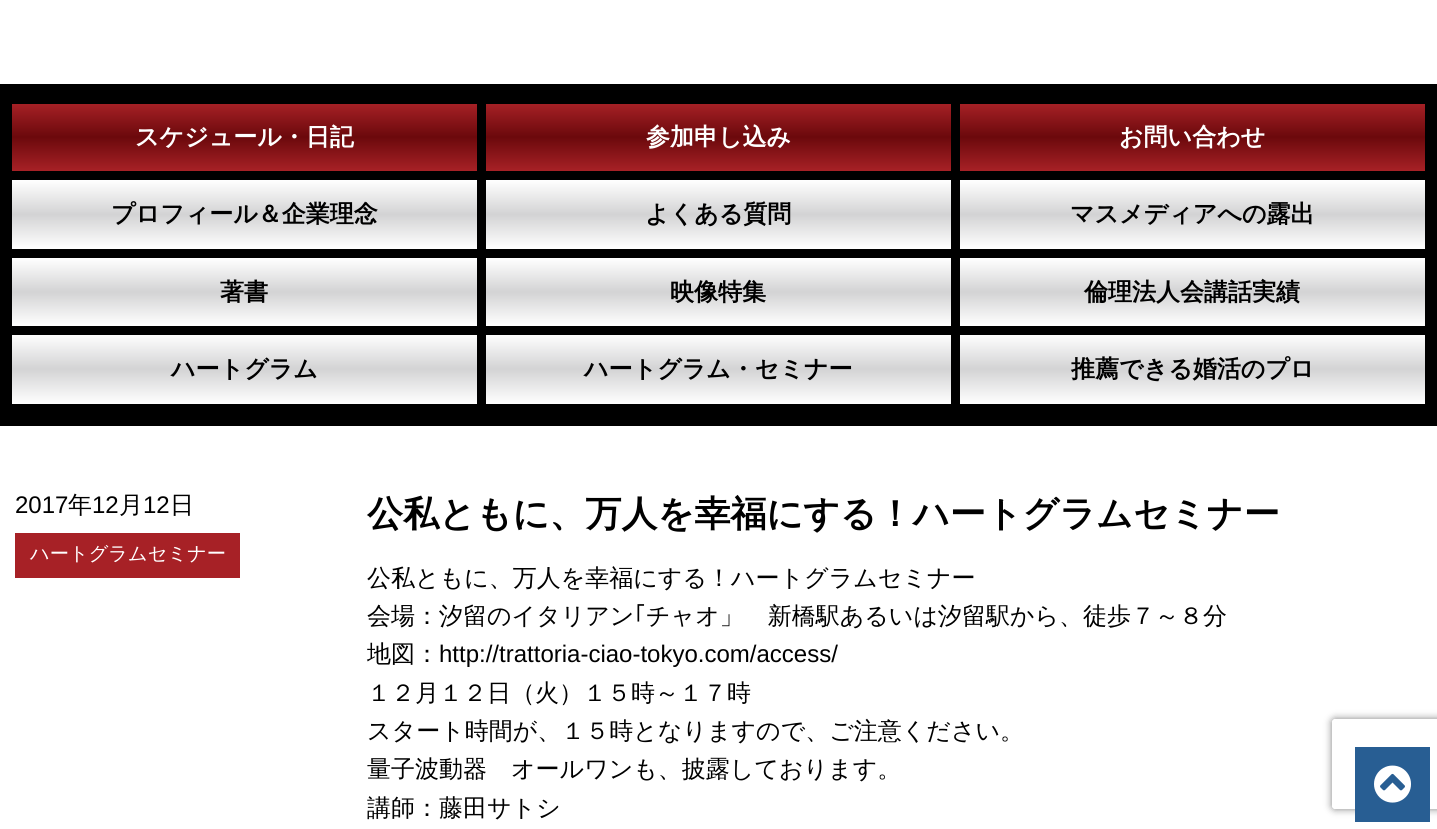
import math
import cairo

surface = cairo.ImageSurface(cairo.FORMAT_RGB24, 1437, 829)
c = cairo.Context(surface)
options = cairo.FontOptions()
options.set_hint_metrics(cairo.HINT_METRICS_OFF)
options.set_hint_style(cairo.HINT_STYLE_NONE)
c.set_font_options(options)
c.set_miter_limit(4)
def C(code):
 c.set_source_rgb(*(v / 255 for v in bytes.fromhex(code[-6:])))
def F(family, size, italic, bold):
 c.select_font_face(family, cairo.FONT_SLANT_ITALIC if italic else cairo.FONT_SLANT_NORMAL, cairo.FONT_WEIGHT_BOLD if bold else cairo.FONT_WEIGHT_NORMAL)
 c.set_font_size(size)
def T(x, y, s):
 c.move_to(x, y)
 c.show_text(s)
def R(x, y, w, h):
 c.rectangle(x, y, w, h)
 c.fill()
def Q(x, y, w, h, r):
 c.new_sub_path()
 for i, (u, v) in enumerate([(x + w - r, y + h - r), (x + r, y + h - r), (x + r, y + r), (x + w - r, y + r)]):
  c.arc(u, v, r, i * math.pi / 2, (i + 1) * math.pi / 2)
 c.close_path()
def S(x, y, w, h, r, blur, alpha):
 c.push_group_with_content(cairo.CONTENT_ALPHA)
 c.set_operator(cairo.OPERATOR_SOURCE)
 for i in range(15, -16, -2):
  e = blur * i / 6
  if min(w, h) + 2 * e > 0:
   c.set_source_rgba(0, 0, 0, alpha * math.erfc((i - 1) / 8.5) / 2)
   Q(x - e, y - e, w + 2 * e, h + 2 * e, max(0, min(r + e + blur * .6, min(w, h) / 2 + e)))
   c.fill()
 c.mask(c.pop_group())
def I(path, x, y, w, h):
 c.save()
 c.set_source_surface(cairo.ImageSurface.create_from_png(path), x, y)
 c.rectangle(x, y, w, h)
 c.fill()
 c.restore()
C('ffffff')
c.paint()
C('000000')
R(0,84,1437,342)
gradient = cairo.LinearGradient(245,103,245,171)
gradient.add_color_stop_rgba(0,0.655,0.129,0.149,1)
gradient.add_color_stop_rgba(.5,0.42,0.035,0.047,1)
gradient.add_color_stop_rgba(1,0.655,0.129,0.149,1)
c.set_source(gradient)
R(12,104,465,67)
F('WenQuanYi Zen Hei',24,0,1)
C('ffffff')
T(135,145,'スケジュール・日記')
gradient = cairo.LinearGradient(719,103,719,171)
gradient.add_color_stop_rgba(0,0.655,0.129,0.149,1)
gradient.add_color_stop_rgba(.5,0.42,0.035,0.047,1)
gradient.add_color_stop_rgba(1,0.655,0.129,0.149,1)
c.set_source(gradient)
R(486,104,465,67)
C('ffffff')
T(646,145,'参加申し込み')
gradient = cairo.LinearGradient(1193,103,1193,171)
gradient.add_color_stop_rgba(0,0.655,0.129,0.149,1)
gradient.add_color_stop_rgba(.5,0.42,0.035,0.047,1)
gradient.add_color_stop_rgba(1,0.655,0.129,0.149,1)
c.set_source(gradient)
R(960,104,465,67)
C('ffffff')
T(1119,145,'お問い合わせ')
gradient = cairo.LinearGradient(245,180,245,249)
gradient.add_color_stop_rgba(0,1,1,1,1)
gradient.add_color_stop_rgba(.5,0.827,0.827,0.831,1)
gradient.add_color_stop_rgba(1,1,1,1,1)
c.set_source(gradient)
R(12,180,465,69)
C('000000')
T(111,222,'プロフィール＆企業理念')
gradient = cairo.LinearGradient(719,180,719,249)
gradient.add_color_stop_rgba(0,1,1,1,1)
gradient.add_color_stop_rgba(.5,0.827,0.827,0.831,1)
gradient.add_color_stop_rgba(1,1,1,1,1)
c.set_source(gradient)
R(486,180,465,69)
C('000000')
T(645,222,'よくある質問')
gradient = cairo.LinearGradient(1193,180,1193,249)
gradient.add_color_stop_rgba(0,1,1,1,1)
gradient.add_color_stop_rgba(.5,0.827,0.827,0.831,1)
gradient.add_color_stop_rgba(1,1,1,1,1)
c.set_source(gradient)
R(960,180,465,69)
C('000000')
T(1070,222,'マスメディアへの露出')
gradient = cairo.LinearGradient(245,258,245,326)
gradient.add_color_stop_rgba(0,1,1,1,1)
gradient.add_color_stop_rgba(.5,0.827,0.827,0.831,1)
gradient.add_color_stop_rgba(1,1,1,1,1)
c.set_source(gradient)
R(12,258,465,68)
C('000000')
T(220,300,'著書')
gradient = cairo.LinearGradient(719,258,719,326)
gradient.add_color_stop_rgba(0,1,1,1,1)
gradient.add_color_stop_rgba(.5,0.827,0.827,0.831,1)
gradient.add_color_stop_rgba(1,1,1,1,1)
c.set_source(gradient)
R(486,258,465,68)
C('000000')
T(670,300,'映像特集')
gradient = cairo.LinearGradient(1193,258,1193,326)
gradient.add_color_stop_rgba(0,1,1,1,1)
gradient.add_color_stop_rgba(.5,0.827,0.827,0.831,1)
gradient.add_color_stop_rgba(1,1,1,1,1)
c.set_source(gradient)
R(960,258,465,68)
C('000000')
T(1084,300,'倫理法人会講話実績')
gradient = cairo.LinearGradient(245,334,245,404)
gradient.add_color_stop_rgba(0,1,1,1,1)
gradient.add_color_stop_rgba(.5,0.827,0.827,0.831,1)
gradient.add_color_stop_rgba(1,1,1,1,1)
c.set_source(gradient)
R(12,335,465,69)
C('000000')
T(171,377,'ハートグラム')
gradient = cairo.LinearGradient(719,334,719,404)
gradient.add_color_stop_rgba(0,1,1,1,1)
gradient.add_color_stop_rgba(.5,0.827,0.827,0.831,1)
gradient.add_color_stop_rgba(1,1,1,1,1)
c.set_source(gradient)
R(486,335,465,69)
C('000000')
T(584,377,'ハートグラム・セミナー')
gradient = cairo.LinearGradient(1193,334,1193,404)
gradient.add_color_stop_rgba(0,1,1,1,1)
gradient.add_color_stop_rgba(.5,0.827,0.827,0.831,1)
gradient.add_color_stop_rgba(1,1,1,1,1)
c.set_source(gradient)
R(960,335,465,69)
C('000000')
T(1071,377,'推薦できる婚活のプロ')
F('Liberation Sans',24,0,0)
T(15,513,'2017')
F('WenQuanYi Zen Hei Medium',24,0,0)
T(68,513,'年')
F('Liberation Sans',24,0,0)
T(92,513,'12')
F('WenQuanYi Zen Hei Medium',24,0,0)
T(119,513,'月')
F('Liberation Sans',24,0,0)
T(143,513,'12')
F('WenQuanYi Zen Hei Medium',24,0,0)
T(170,513,'日')
C('a72126')
R(15,533,225,45)
F('WenQuanYi Zen Hei Medium',19.25,0,0)
C('ffffff')
T(30,560,'ハートグラムセミナー')
F('WenQuanYi Zen Hei',36,0,1)
C('000000')
T(367,526,'公私ともに、万人を幸福にする！ハートグラムセミナー')
F('WenQuanYi Zen Hei Medium',24,0,0)
T(367,586,'公私ともに、万人を幸福にする！ハートグラムセミナー')
T(367,624,'会場：汐留のイタリアン')
F('IPAPGothic',24,0,0)
T(634,624,'｢')
F('WenQuanYi Zen Hei Medium',24,0,0)
T(646,624,'チャオ」　新橋駅あるいは汐留駅から、徒歩７～８分')
T(367,662,'地図：')
F('Liberation Sans',24,0,0)
T(439,662,'http://trattoria-ciao-tokyo.com/access/')
F('WenQuanYi Zen Hei Medium',24,0,0)
T(367,701,'１２月１２日（火）１５時～１７時')
T(367,739,'スタート時間が、１５時となりますので、ご注意ください。')
T(367,777,'量子波動器　オールワンも、披露しております。')
T(367,816,'講師：藤田サトシ')
c.save()
c.set_fill_rule(cairo.FILL_RULE_EVEN_ODD)
c.new_path()
c.move_to(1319,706)
c.line_to(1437,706)
c.line_to(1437,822)
c.line_to(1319,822)
c.close_path()
c.move_to(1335,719)
c.line_to(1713,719)
c.curve_to(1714.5,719,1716,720.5,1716,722)
c.line_to(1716,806)
c.curve_to(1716,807.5,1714.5,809,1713,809)
c.line_to(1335,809)
c.curve_to(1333.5,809,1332,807.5,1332,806)
c.line_to(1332,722)
c.curve_to(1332,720.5,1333.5,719,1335,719)
c.close_path()
c.clip()
C('808080')
S(1332,719,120,90,3,4,1)
c.restore()
C('285e93')
R(1355,747,75,75)
I('1.png',1374,765,37,38)
surface.write_to_png('o.png')
